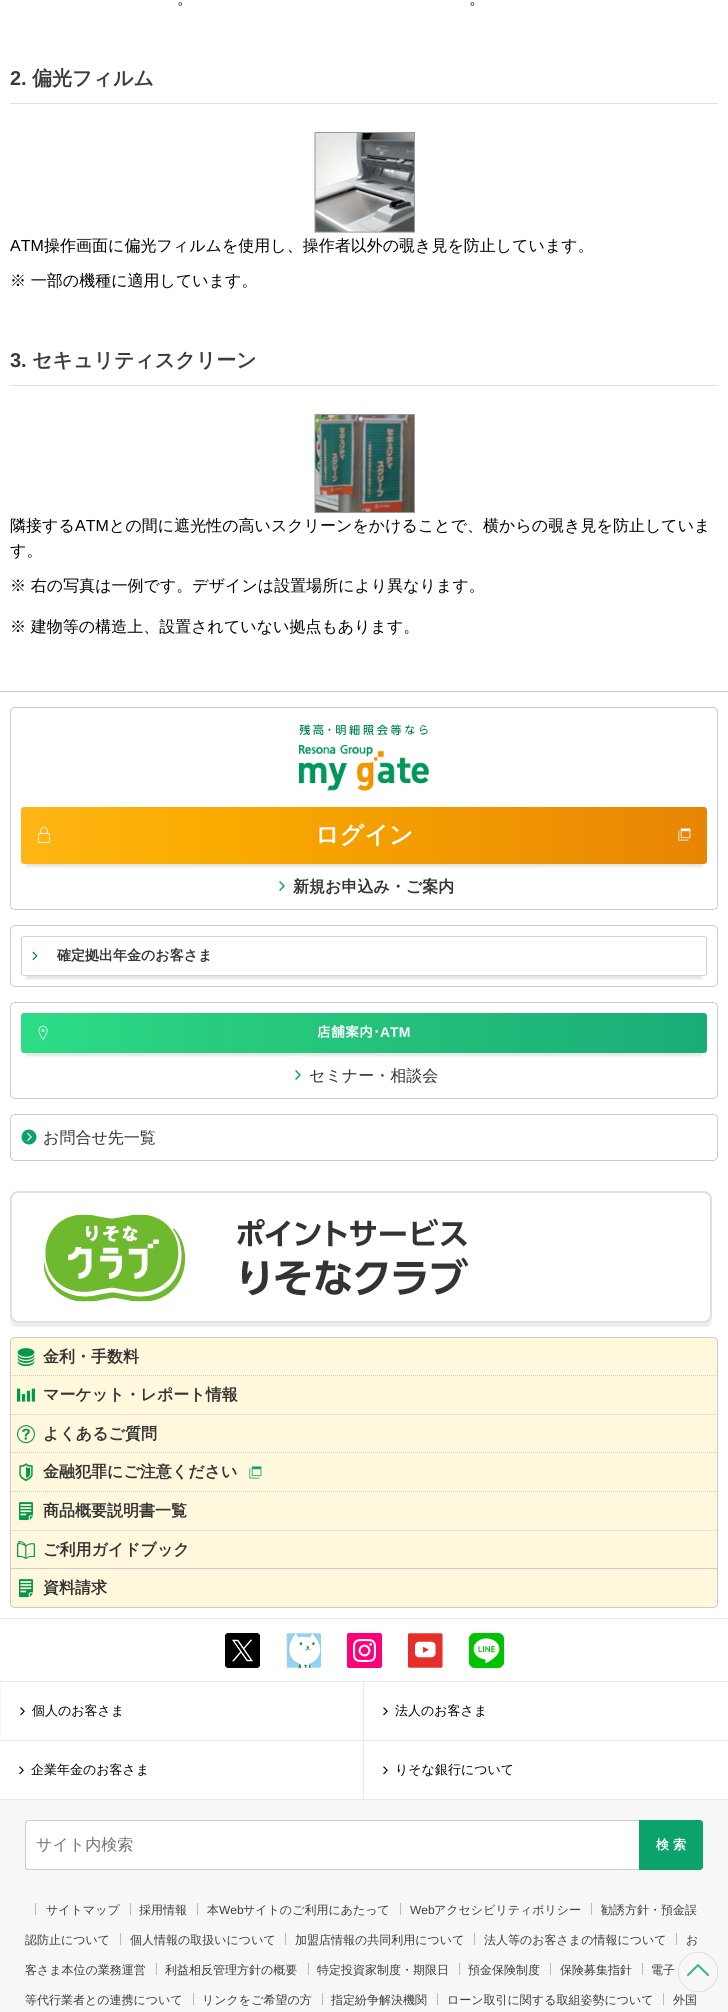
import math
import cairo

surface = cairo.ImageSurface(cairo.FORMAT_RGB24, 728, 2012)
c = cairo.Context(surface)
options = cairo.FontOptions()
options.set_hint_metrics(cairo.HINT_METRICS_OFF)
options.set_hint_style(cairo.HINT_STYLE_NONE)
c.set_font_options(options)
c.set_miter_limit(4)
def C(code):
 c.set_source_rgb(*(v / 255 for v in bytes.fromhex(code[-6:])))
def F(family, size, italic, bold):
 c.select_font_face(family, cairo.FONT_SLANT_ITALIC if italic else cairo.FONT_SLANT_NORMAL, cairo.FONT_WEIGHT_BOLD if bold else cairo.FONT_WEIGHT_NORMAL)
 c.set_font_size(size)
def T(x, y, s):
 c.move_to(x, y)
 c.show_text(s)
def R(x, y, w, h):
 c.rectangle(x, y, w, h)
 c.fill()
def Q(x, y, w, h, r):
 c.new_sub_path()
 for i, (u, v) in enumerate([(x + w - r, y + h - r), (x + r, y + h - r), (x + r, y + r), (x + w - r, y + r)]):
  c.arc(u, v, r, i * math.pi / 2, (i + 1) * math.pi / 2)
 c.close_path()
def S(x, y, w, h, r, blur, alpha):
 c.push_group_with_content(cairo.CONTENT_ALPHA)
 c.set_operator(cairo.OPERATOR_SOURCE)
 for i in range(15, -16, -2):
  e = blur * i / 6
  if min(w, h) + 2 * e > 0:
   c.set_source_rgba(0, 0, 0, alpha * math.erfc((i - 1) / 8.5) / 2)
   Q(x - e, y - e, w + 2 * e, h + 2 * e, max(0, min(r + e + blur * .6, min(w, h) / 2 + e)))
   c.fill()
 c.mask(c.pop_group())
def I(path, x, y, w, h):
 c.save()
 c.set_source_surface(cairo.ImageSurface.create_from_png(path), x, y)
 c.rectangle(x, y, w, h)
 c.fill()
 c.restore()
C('ffffff')
c.paint()
F('WenQuanYi Zen Hei Medium',16,0,0)
C('000000')
T(177,4,'。')
T(469,4,'。')
C('e1e1e1')
R(10,103,708,1)
F('Liberation Sans',20,0,1)
C('3c3c3c')
T(10,85,'2.')
F('WenQuanYi Zen Hei',20,0,1)
T(32,85,'偏光フィルム')
I('1.png',314,132,101,101)
F('Liberation Sans',16,0,0)
C('000000')
T(10,251,'ATM')
F('WenQuanYi Zen Hei Medium',16,0,0)
T(44,251,'操作画面に偏光フィルムを使用し、操作者以外の覗き見を防止しています。')
T(10,286,'※ 一部の機種に適用しています。')
C('e1e1e1')
R(10,385,708,1)
F('Liberation Sans',20,0,1)
C('3c3c3c')
T(10,367,'3.')
F('WenQuanYi Zen Hei',20,0,1)
T(32,367,'セキュリティスクリーン')
I('2.png',314,414,101,99)
F('WenQuanYi Zen Hei Medium',16,0,0)
C('000000')
T(10,531,'隣接する')
F('Liberation Sans',16,0,0)
T(75,531,'ATM')
F('WenQuanYi Zen Hei Medium',16,0,0)
T(109,531,'との間に遮光性の高いスクリーンをかけることで、横からの覗き見を防止していま')
T(10,556,'す。')
T(10,591,'※ 右の写真は一例です。デザインは設置場所により異なります。')
T(10,632,'※ 建物等の構造上、設置されていない拠点もあります。')
C('cccccc')
R(0,691,728,1)
Q(10.5,707.5,707,202,4.5)
c.set_line_width(1)
c.stroke()
I('3.png',298,724,131,67)
C('000000')
S(26,820,676,47,0,1,.1)
gradient = cairo.LinearGradient(-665,836,707,836)
gradient.add_color_stop_rgba(0,1,0.71,0.075,1)
gradient.add_color_stop_rgba(.51,1,0.71,0.075,1)
gradient.add_color_stop_rgba(.64,0.98,0.671,0,1)
gradient.add_color_stop_rgba(1,0.91,0.522,0.016,1)
c.set_source(gradient)
Q(21,807,686,57,3)
c.fill()
I('4.png',38,827,12,16)
F('WenQuanYi Zen Hei',24,0,1)
C('ffffff')
T(315,843,'ログイン')
I('5.png',678,828,13,13)
I('6.png',279,881,6,10)
F('WenQuanYi Zen Hei',16,0,1)
C('333333')
T(293,892,'新規お申込み・ご案内')
Q(10.5,925.5,707,61,4.5)
C('cccccc')
c.stroke()
c.save()
c.rectangle(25,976,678,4)
c.clip()
C('000000')
S(26,949,676,30,0,1,.1)
c.restore()
Q(21.5,936.5,685,39,2.5)
C('d3d3d3')
c.stroke()
I('7.png',32,951,6,10)
F('WenQuanYi Zen Hei',14,0,1)
C('333333')
T(57,960,'確定拠出年金のお客さま')
Q(10.5,1002.5,707,96,4.5)
C('cccccc')
c.stroke()
C('000000')
S(26,1026,676,30,0,1,.1)
gradient = cairo.LinearGradient(-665,1033,707,1033)
gradient.add_color_stop_rgba(0,0.173,0.863,0.529,1)
gradient.add_color_stop_rgba(.51,0.173,0.863,0.529,1)
gradient.add_color_stop_rgba(.64,0.161,0.8,0.49,1)
gradient.add_color_stop_rgba(1,0.102,0.675,0.471,1)
c.set_source(gradient)
Q(21,1013,686,40,3)
c.fill()
I('8.png',38,1025,10,15)
F('IPAPGothic',14,0,1)
C('ffffff')
T(317,1037,'店舗案内･')
F('Liberation Sans',14,0,1)
T(380,1037,'ATM')
I('6.png',295,1070,6,10)
F('WenQuanYi Zen Hei Medium',16,0,0)
C('333333')
T(309,1081,'セミナー・相談会')
Q(10.5,1114.5,707,46,4.5)
C('cccccc')
c.stroke()
I('9.png',21,1129,16,16)
C('333333')
T(43,1143,'お問合せ先一覧')
I('10.png',10,1191,702,136)
C('fff8dd')
Q(10.5,1337.5,707,270,4.5)
c.fill_preserve()
C('cccccc')
c.stroke()
I('11.png',17,1348,18,19)
F('WenQuanYi Zen Hei',16,0,1)
C('333333')
T(43,1362,'金利・手数料')
c.new_path()
c.move_to(11,1375.5)
c.line_to(717,1375.5)
C('cccccc')
c.set_dash([1,1])
c.stroke()
I('12.png',17,1388,18,14)
C('333333')
T(43,1400,'マーケット・レポート情報')
c.new_path()
c.move_to(11,1414.5)
c.line_to(717,1414.5)
C('cccccc')
c.stroke()
I('13.png',17,1425,18,19)
C('333333')
T(43,1439,'よくあるご質問')
c.new_path()
c.move_to(11,1452.5)
c.line_to(717,1452.5)
C('cccccc')
c.stroke()
I('14.png',19,1463,14,19)
C('333333')
T(43,1477,'金融犯罪にご注意ください')
I('15.png',249,1466,13,13)
c.new_path()
c.move_to(11,1491.5)
c.line_to(717,1491.5)
C('cccccc')
c.stroke()
I('16.png',18,1502,15,19)
C('333333')
T(43,1516,'商品概要説明書一覧')
c.new_path()
c.move_to(11,1530.5)
c.line_to(717,1530.5)
C('cccccc')
c.stroke()
I('17.png',17,1541,18,19)
C('333333')
T(43,1555,'ご利用ガイドブック')
C('cccccc')
R(11,1568,706,1)
I('16.png',18,1579,15,19)
C('333333')
T(43,1593,'資料請求')
C('eaeaea')
R(0,1618,728,1)
I('18.png',225,1633,35,35)
I('19.png',286,1633,35,35)
I('20.png',347,1633,35,35)
I('21.png',408,1633,35,35)
I('22.png',469,1633,35,35)
R(0,1681,728,1)
R(363,1682,1,118)
R(0,1740,728,1)
C('f7f7f7')
R(0,1682,1,58)
I('23.png',20,1707,5,9)
F('WenQuanYi Zen Hei Medium',13,0,0)
C('000000')
T(32,1715,'個人のお客さま')
I('23.png',383,1707,5,9)
T(395,1715,'法人のお客さま')
C('eaeaea')
R(0,1799,728,1)
I('23.png',19,1766,5,9)
C('000000')
T(31,1774,'企業年金のお客さま')
I('23.png',383,1766,5,9)
T(395,1774,'りそな銀行について')
C('f7f7f7')
R(0,1800,728,212)
C('ffffff')
c.new_path()
c.move_to(28,1820)
c.line_to(639,1820)
c.line_to(639,1870)
c.line_to(28,1870)
c.curve_to(26.5,1870,25,1868.5,25,1867)
c.line_to(25,1823)
c.curve_to(25,1821.5,26.5,1820,28,1820)
c.close_path()
c.fill()
C('cccccc')
c.set_fill_rule(cairo.FILL_RULE_EVEN_ODD)
c.new_path()
c.move_to(28,1820)
c.line_to(639,1820)
c.line_to(639,1870)
c.line_to(28,1870)
c.curve_to(26,1870,25,1869,25,1867)
c.line_to(25,1823)
c.curve_to(25,1821,26,1820,28,1820)
c.close_path()
c.move_to(28,1821)
c.line_to(639,1821)
c.line_to(639,1869)
c.line_to(28,1869)
c.curve_to(27,1869,26,1868,26,1867)
c.line_to(26,1823)
c.curve_to(26,1822,27,1821,28,1821)
c.close_path()
c.fill()
F('WenQuanYi Zen Hei Medium',16,0,0)
C('757575')
T(36,1850,'サイト内検索')
C('0ca26c')
c.new_path()
c.move_to(639,1820)
c.line_to(700,1820)
c.curve_to(701.5,1820,703,1821.5,703,1823)
c.line_to(703,1867)
c.curve_to(703,1868.5,701.5,1870,700,1870)
c.line_to(639,1870)
c.close_path()
c.fill()
F('WenQuanYi Zen Hei',13,0,1)
C('ffffff')
T(656,1849,'検 索')
F('WenQuanYi Zen Hei Medium',12,0,0)
C('3c3c3c')
T(601,1914,'勧誘方針・預金誤')
T(25,1944,'認防止について')
C('bbbbbb')
R(120,1933,1,12)
R(35,1903,1,12)
C('3c3c3c')
T(46,1914,'サイトマップ')
C('bbbbbb')
R(130,1903,1,12)
C('3c3c3c')
T(139,1914,'採用情報')
C('bbbbbb')
R(197,1903,1,12)
C('3c3c3c')
T(207,1914,'本')
F('Liberation Sans',12,0,0)
T(219,1914,'Web')
F('WenQuanYi Zen Hei Medium',12,0,0)
T(243,1914,'サイトのご利用にあたって')
C('bbbbbb')
R(400,1903,1,12)
F('Liberation Sans',12,0,0)
C('3c3c3c')
T(410,1914,'Web')
F('WenQuanYi Zen Hei Medium',12,0,0)
T(434,1914,'アクセシビリティポリシー')
C('bbbbbb')
R(591,1903,1,12)
C('3c3c3c')
T(130,1944,'個人情報の取扱いについて')
C('bbbbbb')
R(285,1933,1,12)
C('3c3c3c')
T(295,1944,'加盟店情報の共同利用について')
C('bbbbbb')
R(474,1933,1,12)
C('3c3c3c')
T(484,1944,'法人等のお客さまの情報について')
C('bbbbbb')
R(676,1933,1,12)
C('3c3c3c')
T(686,1944,'お')
T(25,1974,'客さま本位の業務運営')
C('bbbbbb')
R(156,1963,1,12)
C('3c3c3c')
T(165,1974,'利益相反管理方針の概要')
C('bbbbbb')
R(308,1963,1,12)
C('3c3c3c')
T(317,1974,'特定投資家制度・期限日')
C('bbbbbb')
R(459,1963,1,12)
C('3c3c3c')
T(468,1974,'預金保険制度')
C('bbbbbb')
R(550,1963,1,12)
C('3c3c3c')
T(651,1974,'電子')
T(25,2004,'等代行業者との連携について')
C('bbbbbb')
R(193,1993,1,12)
C('3c3c3c')
T(560,1974,'保険募集指針')
C('bbbbbb')
R(642,1963,1,12)
C('3c3c3c')
T(202,2004,'リンクをご希望の方')
C('bbbbbb')
R(322,1993,1,12)
C('3c3c3c')
T(331,2004,'指定紛争解決機関')
C('bbbbbb')
R(437,1993,1,12)
C('3c3c3c')
T(447,2004,'ローン取引に関する取組姿勢について')
C('bbbbbb')
R(663,1993,1,12)
C('3c3c3c')
T(673,2004,'外国')
I('24.png',678,1952,40,40)
surface.write_to_png('o.png')
